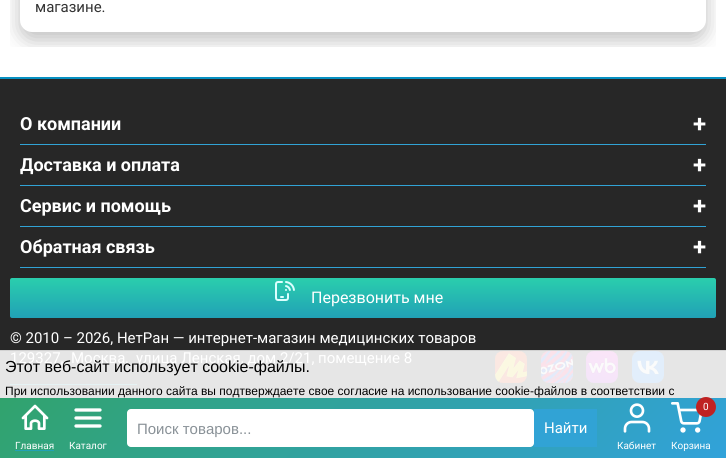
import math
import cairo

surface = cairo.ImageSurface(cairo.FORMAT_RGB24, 726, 458)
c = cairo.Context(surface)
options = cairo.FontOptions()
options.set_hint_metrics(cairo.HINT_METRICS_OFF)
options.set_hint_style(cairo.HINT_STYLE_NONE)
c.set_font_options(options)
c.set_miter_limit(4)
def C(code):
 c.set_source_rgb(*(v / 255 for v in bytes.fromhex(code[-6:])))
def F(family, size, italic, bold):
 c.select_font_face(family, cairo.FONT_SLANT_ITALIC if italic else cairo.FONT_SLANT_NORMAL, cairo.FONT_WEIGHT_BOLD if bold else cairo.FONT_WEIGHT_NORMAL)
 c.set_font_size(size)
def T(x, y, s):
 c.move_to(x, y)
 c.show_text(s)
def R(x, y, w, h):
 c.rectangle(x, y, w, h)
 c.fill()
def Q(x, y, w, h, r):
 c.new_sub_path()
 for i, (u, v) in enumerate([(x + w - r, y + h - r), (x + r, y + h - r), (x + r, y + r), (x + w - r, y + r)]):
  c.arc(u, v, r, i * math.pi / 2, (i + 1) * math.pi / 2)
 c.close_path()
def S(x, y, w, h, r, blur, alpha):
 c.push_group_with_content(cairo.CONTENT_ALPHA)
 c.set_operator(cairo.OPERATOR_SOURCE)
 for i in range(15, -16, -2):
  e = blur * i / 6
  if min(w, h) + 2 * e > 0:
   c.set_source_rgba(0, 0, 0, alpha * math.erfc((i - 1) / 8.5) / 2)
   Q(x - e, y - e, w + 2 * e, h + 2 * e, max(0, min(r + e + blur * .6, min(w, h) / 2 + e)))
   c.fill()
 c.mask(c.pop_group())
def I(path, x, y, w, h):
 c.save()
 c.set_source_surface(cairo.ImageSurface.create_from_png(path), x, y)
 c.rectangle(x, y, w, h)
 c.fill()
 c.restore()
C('ffffff')
c.paint()
c.save()
c.rectangle(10,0,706,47)
c.clip()
C('000000')
S(20,-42,686,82,12,10,.25)
c.restore()
C('ffffff')
Q(20,-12,686,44,12)
c.fill()
F('Roboto',15,0,0)
C('333333')
T(35,12,'магазине.')
C('272727')
R(0,79,726,271)
C('e6e6e6')
R(0,351,726,47)
C('0690c1')
R(0,77,726,2)
C('31a3d5')
R(20,144,686,1)
F('Roboto',18,0,1)
C('ffffff')
T(20,130,'О компании')
F('Roboto',24,0,1)
T(693,132,'+')
C('31a3d5')
R(20,185,686,1)
F('Roboto',18,0,1)
C('ffffff')
T(20,171,'Доставка и оплата')
F('Roboto',24,0,1)
T(693,173,'+')
C('31a3d5')
R(20,226,686,1)
F('Roboto',18,0,1)
C('ffffff')
T(20,212,'Сервис и помощь')
F('Roboto',24,0,1)
T(693,214,'+')
C('31a3d5')
R(20,267,686,1)
F('Roboto',18,0,1)
C('ffffff')
T(20,253,'Обратная связь')
F('Roboto',24,0,1)
T(693,255,'+')
gradient = cairo.LinearGradient(363,278,363,318)
gradient.add_color_stop_rgba(0,0.165,0.808,0.678,1)
gradient.add_color_stop_rgba(1,0.129,0.631,0.714,1)
c.set_source(gradient)
Q(10,278,706,40,2)
c.fill()
I('1.png',275,281,20,20)
F('Roboto',16,0,0)
C('ffffff')
T(311,303,'Перезвонить мне')
F('Roboto',15,0,0)
T(10,343,'© 2010 – 2026, НетРан — интернет-магазин медицинских товаров')
T(10,363,'129327,')
T(71,363,'Москва,')
T(136,363,'улица Ленская, дом 2/21, помещение 8')
C('e5f2f4')
R(10,384,127,1)
I('2.png',495,351,32,32)
I('3.png',541,351,32,32)
I('4.png',586,351,32,32)
I('5.png',632,351,32,32)
C('d2d2d2')
R(0,350,726,1)
F('Liberation Sans',16,0,0)
C('000000')
T(5,372,'Этот веб-сайт использует cookie-файлы.')
F('Liberation Sans',12,0,0)
T(5,395,'При использовании данного сайта вы подтверждаете свое согласие на использование cookie-файлов в соответствии с')
gradient = cairo.LinearGradient(166,232,560,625)
gradient.add_color_stop_rgba(0,0.192,0.639,0.427,1)
gradient.add_color_stop_rgba(1,0.192,0.635,0.855,1)
c.set_source(gradient)
R(0,398,726,60)
C('ffffff')
Q(127,409,407,38,4)
c.fill()
F('Liberation Sans',15,0,0)
C('899197')
T(137,434,'Поиск товаров...')
C('31a3d5')
R(534,409,63,38)
F('Roboto',15,0,0)
C('ffffff')
T(544,433,'Найти')
I('6.png',671,402,31,31)
C('bf2222')
c.arc(706,407,10,0,2 * math.pi)
c.fill()
F('Roboto',10,0,0)
C('ffffff')
T(703,410,'0')
T(671,449,'Корзина')
I('7.png',21,404,28,26)
T(15,449,'Главная')
C('21a1b6')
R(15,450,39,1)
c.new_path()
c.move_to(76,410)
c.line_to(100,410)
c.move_to(76,418)
c.line_to(100,418)
c.move_to(76,426)
c.line_to(100,426)
C('ffffff')
c.set_line_width(3.3)
c.set_line_cap(cairo.LINE_CAP_ROUND)
c.set_line_join(cairo.LINE_JOIN_ROUND)
c.stroke()
T(69,449,'Каталог')
I('8.png',623,403,28,30)
T(617,449,'Кабинет')
surface.write_to_png('o.png')
